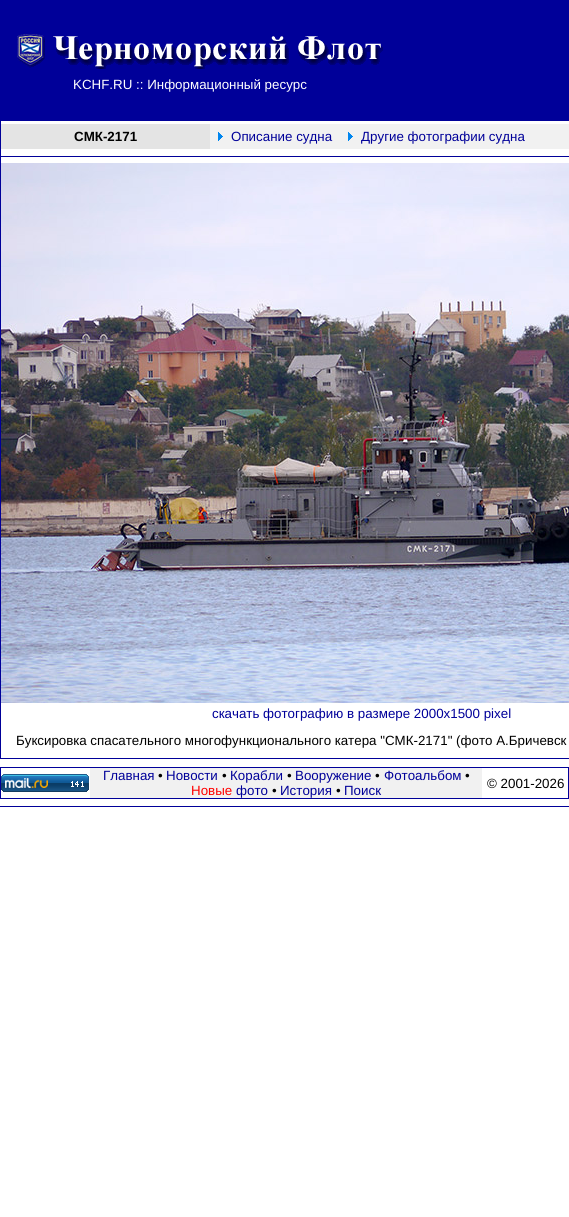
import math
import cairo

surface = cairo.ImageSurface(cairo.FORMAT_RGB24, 569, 1217)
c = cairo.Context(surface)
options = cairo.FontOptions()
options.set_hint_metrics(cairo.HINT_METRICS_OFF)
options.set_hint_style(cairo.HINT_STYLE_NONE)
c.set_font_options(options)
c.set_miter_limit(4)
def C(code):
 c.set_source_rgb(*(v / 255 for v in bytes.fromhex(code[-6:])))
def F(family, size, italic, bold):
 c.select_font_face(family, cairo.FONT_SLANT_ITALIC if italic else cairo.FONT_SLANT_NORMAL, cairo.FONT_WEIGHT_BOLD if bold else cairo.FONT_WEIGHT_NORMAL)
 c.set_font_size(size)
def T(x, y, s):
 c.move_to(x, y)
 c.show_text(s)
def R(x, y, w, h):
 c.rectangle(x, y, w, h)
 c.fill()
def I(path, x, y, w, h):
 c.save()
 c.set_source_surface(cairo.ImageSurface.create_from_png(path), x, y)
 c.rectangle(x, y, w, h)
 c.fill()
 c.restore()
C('ffffff')
c.paint()
C('000099')
R(0,0,569,759)
C('ffffff')
R(1,121,568,637)
I('1.png',17,34,366,35)
F('Liberation Sans',13.35,0,0)
T(73,89,'KCHF.RU :: Информационный ресурс')
C('e4e4e4')
R(1,124,209,25)
F('Liberation Sans',13.35,0,1)
C('000000')
T(74,141,'СМК-2171')
C('f1f1f1')
R(210,124,359,25)
I('2.png',218,132,5,9)
F('Liberation Sans',13.35,0,0)
C('000099')
T(231,141,'Описание судна')
I('2.png',348,132,5,9)
T(361,141,'Другие фотографии судна')
R(1,156,568,1)
I('3.png',1,163,568,540)
T(212,718,'скачать фотографию в размере 2000х1500 pixel')
C('000000')
T(16,745,'Буксировка спасательного многофункционального катера "СМК-2171" (фото А.Бричевск')
C('000099')
R(0,767,569,32)
C('ffffff')
R(1,768,567,30)
I('4.png',1,774,88,18)
C('f1f1f1')
R(90,768,392,30)
C('000099')
T(103,780,'Главная')
C('000000')
T(158,780,'•')
C('000099')
T(166,780,'Новости')
C('000000')
T(222,780,'•')
C('000099')
T(230,780,'Корабли')
C('000000')
T(287,780,'•')
C('000099')
T(295,780,'Вооружение')
C('000000')
T(375,780,'•')
C('000099')
T(384,780,'Фотоальбом')
C('000000')
T(465,780,'•')
C('ff0000')
T(191,795,'Новые')
C('000099')
T(236,795,'фото')
C('000000')
T(272,795,'•')
C('000099')
T(280,795,'История')
C('000000')
T(336,795,'•')
C('000099')
T(344,795,'Поиск')
C('000000')
T(487,788,'© 2001-2026')
C('000099')
R(0,806,569,1)
surface.write_to_png('o.png')
